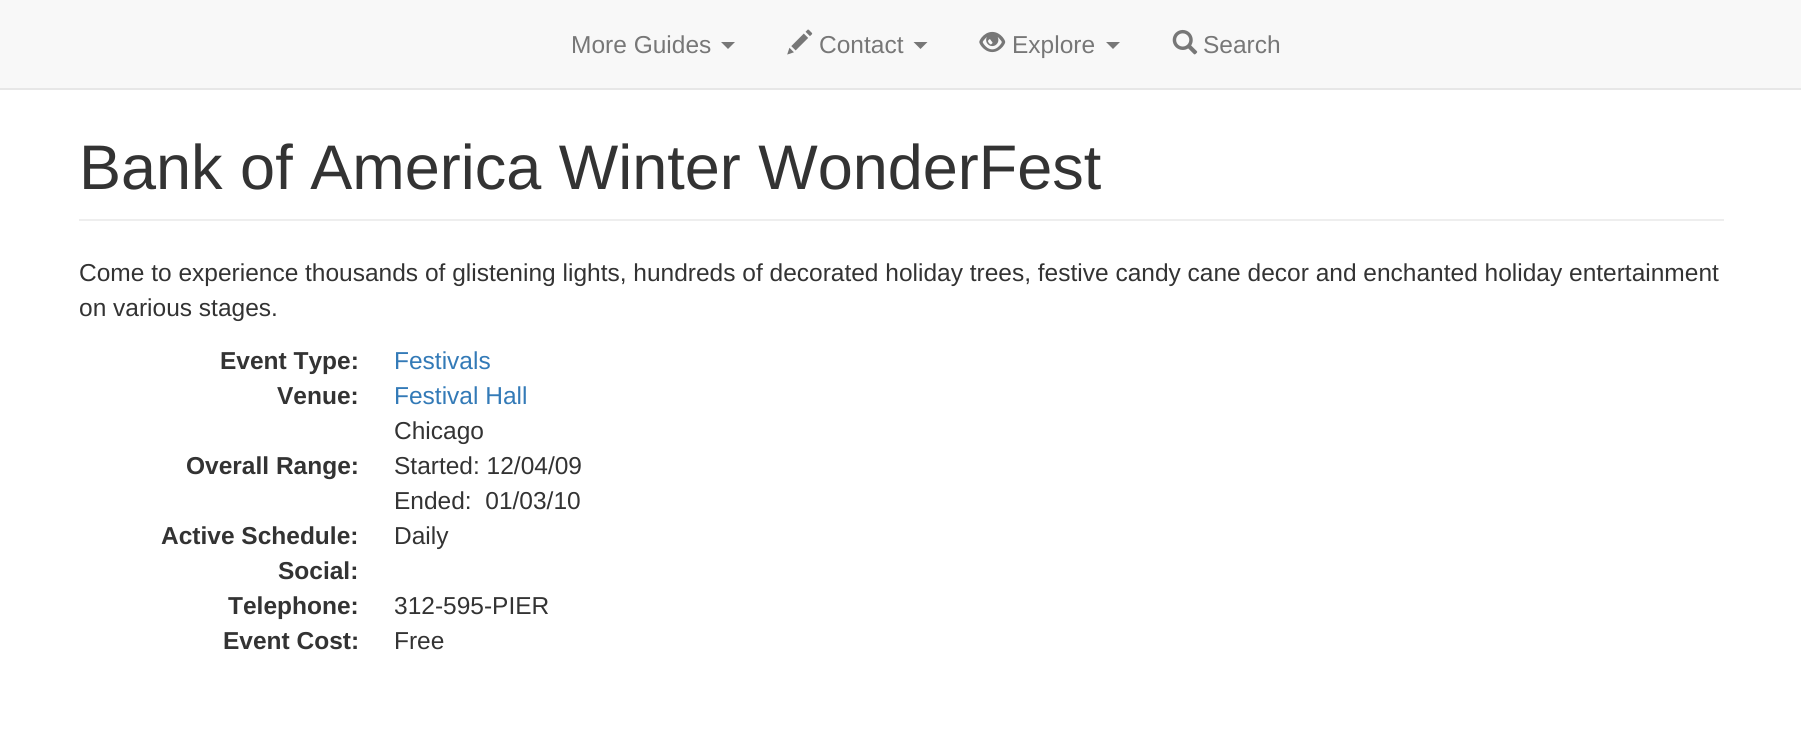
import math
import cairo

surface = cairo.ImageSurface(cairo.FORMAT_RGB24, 1801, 742)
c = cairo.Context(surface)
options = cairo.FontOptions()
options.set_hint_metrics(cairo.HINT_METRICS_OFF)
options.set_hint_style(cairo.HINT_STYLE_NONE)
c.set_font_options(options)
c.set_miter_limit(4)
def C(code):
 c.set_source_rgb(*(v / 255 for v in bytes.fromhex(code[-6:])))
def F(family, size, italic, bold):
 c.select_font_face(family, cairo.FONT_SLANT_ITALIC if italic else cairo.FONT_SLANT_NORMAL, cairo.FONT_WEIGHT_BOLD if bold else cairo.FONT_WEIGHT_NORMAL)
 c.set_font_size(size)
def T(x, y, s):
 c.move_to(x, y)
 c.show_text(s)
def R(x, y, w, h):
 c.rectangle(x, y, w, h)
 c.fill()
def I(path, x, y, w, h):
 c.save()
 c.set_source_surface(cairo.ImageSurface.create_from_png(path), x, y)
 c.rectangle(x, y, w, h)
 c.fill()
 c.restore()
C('ffffff')
c.paint()
C('f8f8f8')
R(0,0,1801,88)
C('e7e7e7')
R(0,88,1801,2)
F('Liberation Sans',24.5,0,0)
C('777777')
T(571,53,'More Guides')
c.new_path()
c.move_to(721,42)
c.line_to(735,42)
c.line_to(728,49)
c.close_path()
c.fill()
I('1.png',787,29,26,26)
T(819,53,'Contact')
c.new_path()
c.move_to(913.5,42)
c.line_to(927.5,42)
c.line_to(920.5,49)
c.close_path()
c.fill()
I('2.png',979,31,27,22)
T(1012,53,'Explore')
c.new_path()
c.move_to(1106,42)
c.line_to(1120,42)
c.line_to(1113,49)
c.close_path()
c.fill()
I('3.png',1172,29,26,26)
T(1203,53,'Search')
C('eeeeee')
R(79,219,1645,2)
F('Liberation Sans',63,0,0)
C('333333')
T(79,189,'Bank of America Winter WonderFest')
F('Liberation Sans',24.5,0,0)
T(79,281,'Come to experience thousands of glistening lights, hundreds of decorated holiday trees, festive candy cane decor and enchanted holiday entertainment')
T(79,316,'on various stages.')
F('Liberation Sans',24.5,0,1)
T(220,369,'Event Type:')
F('Liberation Sans',24.5,0,0)
C('337ab7')
T(394,369,'Festivals')
F('Liberation Sans',24.5,0,1)
C('333333')
T(277,404,'Venue:')
F('Liberation Sans',24.5,0,0)
C('337ab7')
T(394,404,'Festival Hall')
C('333333')
T(394,439,'Chicago')
F('Liberation Sans',24.5,0,1)
T(186,474,'Overall Range:')
F('Liberation Sans',24.5,0,0)
T(394,474,'Started: 12/04/09')
T(394,509,'Ended:  01/03/10')
F('Liberation Sans',24.5,0,1)
T(161,544,'Active Schedule:')
F('Liberation Sans',24.5,0,0)
T(394,544,'Daily')
F('Liberation Sans',24.5,0,1)
T(278,579,'Social:')
T(228,614,'Telephone:')
F('Liberation Sans',24.5,0,0)
T(394,614,'312-595-PIER')
F('Liberation Sans',24.5,0,1)
T(223,649,'Event Cost:')
F('Liberation Sans',24.5,0,0)
T(394,649,'Free')
surface.write_to_png('o.png')
